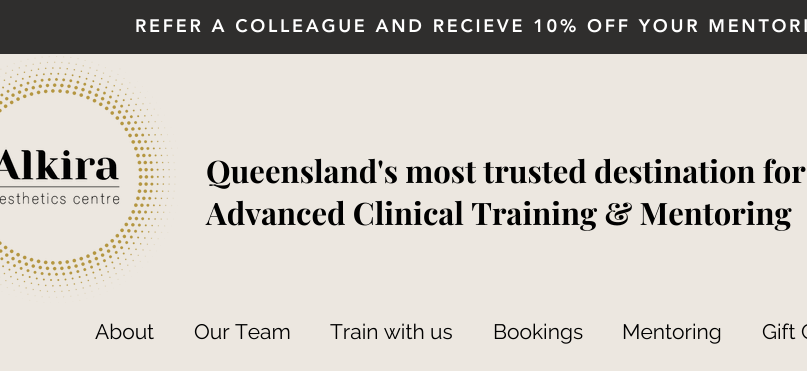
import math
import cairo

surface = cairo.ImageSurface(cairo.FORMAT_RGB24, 807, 371)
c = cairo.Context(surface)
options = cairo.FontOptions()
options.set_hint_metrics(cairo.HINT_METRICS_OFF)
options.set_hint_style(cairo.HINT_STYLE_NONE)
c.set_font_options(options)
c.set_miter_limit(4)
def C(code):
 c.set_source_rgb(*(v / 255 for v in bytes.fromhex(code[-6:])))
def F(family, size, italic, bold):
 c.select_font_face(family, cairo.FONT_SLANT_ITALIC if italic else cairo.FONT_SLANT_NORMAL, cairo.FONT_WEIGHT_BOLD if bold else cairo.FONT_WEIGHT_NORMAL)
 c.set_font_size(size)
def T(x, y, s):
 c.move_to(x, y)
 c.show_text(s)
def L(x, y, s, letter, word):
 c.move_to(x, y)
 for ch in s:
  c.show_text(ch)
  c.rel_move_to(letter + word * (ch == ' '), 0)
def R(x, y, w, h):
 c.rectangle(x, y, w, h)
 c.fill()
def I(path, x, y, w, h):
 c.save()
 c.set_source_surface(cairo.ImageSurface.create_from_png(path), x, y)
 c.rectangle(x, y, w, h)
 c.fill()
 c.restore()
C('ece7e0')
c.paint()
C('2f2e2d')
R(0,0,807,54)
F('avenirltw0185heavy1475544 Black',18,0,0)
C('ffffff')
L(135,32,'REFER A COLLEAGUE AND RECIEVE 10% OFF YOUR MENTORI',2.7,0)
I('1.png',0,56,178,247)
F('Playfair Display',31,0,1)
C('000000')
T(206,183,'Queensland\'s most trusted destination for')
T(206,225,'Advanced Clinical Training & Mentoring')
F('Raleway',21,0,0)
T(95,339,'About')
T(194,339,'Our Team')
T(330,339,'Train with us')
T(493,339,'Bookings')
T(622,339,'Mentoring')
T(762,339,'Gift C')
surface.write_to_png('o.png')
